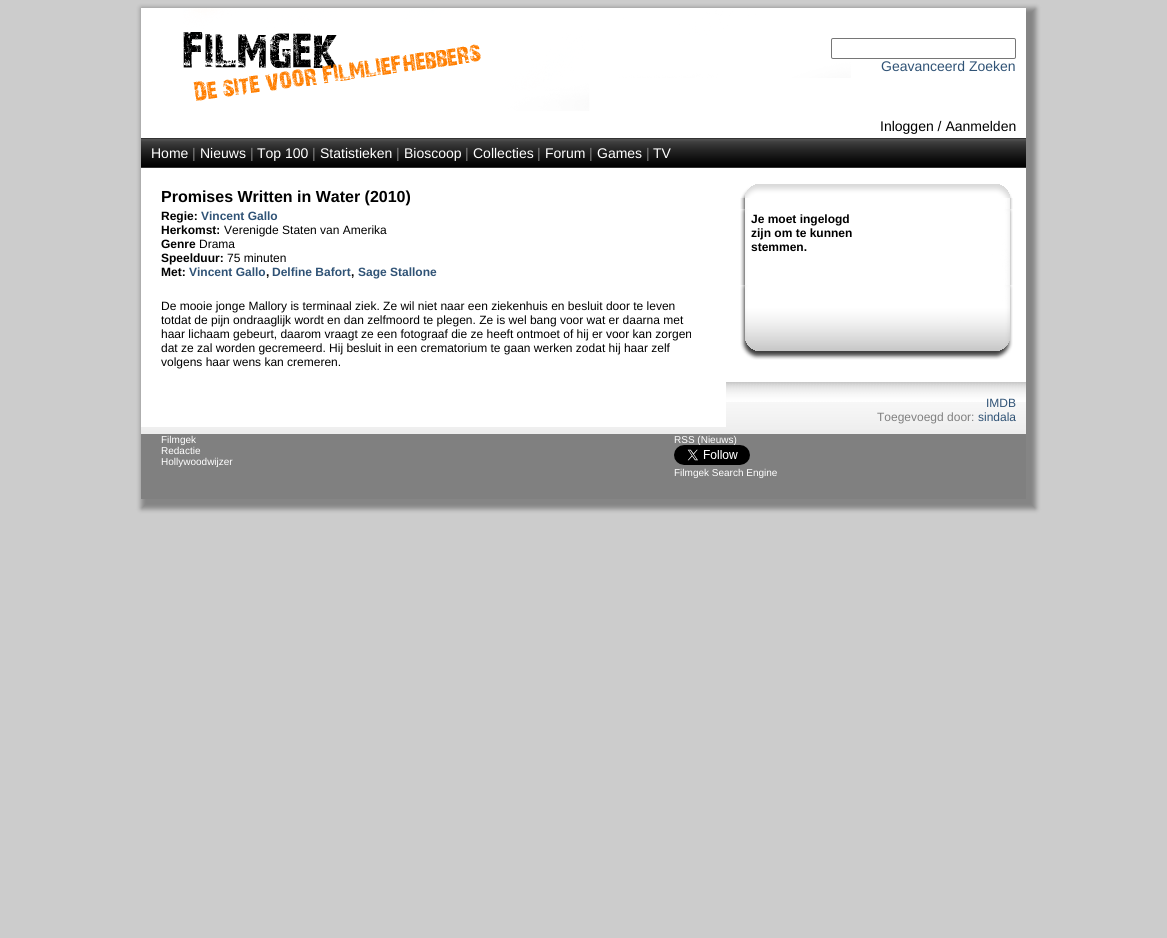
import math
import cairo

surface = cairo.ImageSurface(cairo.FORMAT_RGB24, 1167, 938)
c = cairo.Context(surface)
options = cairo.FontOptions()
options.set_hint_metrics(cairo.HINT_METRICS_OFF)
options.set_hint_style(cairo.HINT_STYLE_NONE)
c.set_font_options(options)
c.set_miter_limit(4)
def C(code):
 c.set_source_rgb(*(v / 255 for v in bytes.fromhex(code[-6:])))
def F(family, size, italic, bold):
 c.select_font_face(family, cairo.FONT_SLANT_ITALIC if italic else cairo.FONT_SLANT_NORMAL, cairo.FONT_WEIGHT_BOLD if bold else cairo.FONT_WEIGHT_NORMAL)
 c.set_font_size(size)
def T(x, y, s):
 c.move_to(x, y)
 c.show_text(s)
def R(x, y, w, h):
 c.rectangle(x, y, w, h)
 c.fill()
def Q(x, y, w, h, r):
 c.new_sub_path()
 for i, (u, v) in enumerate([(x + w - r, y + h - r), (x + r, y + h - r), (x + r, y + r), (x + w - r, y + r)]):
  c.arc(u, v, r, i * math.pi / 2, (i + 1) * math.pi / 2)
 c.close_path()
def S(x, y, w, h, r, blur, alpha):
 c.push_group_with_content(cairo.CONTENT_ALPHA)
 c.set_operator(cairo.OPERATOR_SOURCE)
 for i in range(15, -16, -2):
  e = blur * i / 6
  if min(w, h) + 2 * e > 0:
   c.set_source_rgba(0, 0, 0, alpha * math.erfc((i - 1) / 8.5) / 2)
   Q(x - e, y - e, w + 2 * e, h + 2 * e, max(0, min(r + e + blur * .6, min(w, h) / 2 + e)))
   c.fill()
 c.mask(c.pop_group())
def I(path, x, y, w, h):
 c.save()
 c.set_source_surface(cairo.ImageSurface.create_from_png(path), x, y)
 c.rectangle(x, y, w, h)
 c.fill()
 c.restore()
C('cccccc')
c.paint()
C('858585')
S(141,8,895,501,0,2.5,1)
C('ffffff')
R(141,8,885,382)
I('1.png',141,390,885,44)
I('2.png',183,8,668,103)
Q(831.5,38.5,184,20,1.5)
C('767676')
c.set_line_width(1)
c.stroke()
F('Liberation Sans',14,0,0)
C('305376')
T(881,71,'Geavanceerd Zoeken')
C('000000')
T(880,131,'Inloggen / Aanmelden')
I('3.png',141,138,885,30)
C('ffffff')
T(151,158,'Home')
C('808080')
T(192,158,'|')
C('ffffff')
T(200,158,'Nieuws')
C('808080')
T(250,158,'|')
C('ffffff')
T(257,158,'Top 100')
C('808080')
T(312,158,'|')
C('ffffff')
T(320,158,'Statistieken')
C('808080')
T(396,158,'|')
C('ffffff')
T(404,158,'Bioscoop')
C('808080')
T(465,158,'|')
C('ffffff')
T(473,158,'Collecties')
C('808080')
T(537,158,'|')
C('ffffff')
T(545,158,'Forum')
C('808080')
T(589,158,'|')
C('ffffff')
T(597,158,'Games')
C('808080')
T(646,158,'|')
C('ffffff')
T(653,158,'TV')
R(141,390,585,37)
F('Liberation Sans',16,0,1)
C('000000')
T(161,202,'Promises Written in Water (2010)')
F('Liberation Sans',12,0,1)
T(161,220,'Regie:')
C('305376')
T(201,220,'Vincent Gallo')
C('000000')
T(161,234,'Herkomst:')
F('Liberation Sans',12,0,0)
T(224,234,'Verenigde Staten van Amerika')
F('Liberation Sans',12,0,1)
T(161,248,'Genre')
F('Liberation Sans',12,0,0)
T(199,248,'Drama')
F('Liberation Sans',12,0,1)
T(161,262,'Speelduur:')
F('Liberation Sans',12,0,0)
T(227,262,'75 minuten')
F('Liberation Sans',12,0,1)
T(161,276,'Met:')
C('305376')
T(189,276,'Vincent Gallo')
C('000000')
T(266,276,',')
C('305376')
T(272,276,'Delfine Bafort')
C('000000')
T(351,276,',')
C('305376')
T(358,276,'Sage Stallone')
F('Liberation Sans',12,0,0)
C('000000')
T(161,310,'De mooie jonge Mallory is terminaal ziek. Ze wil niet naar een ziekenhuis en besluit door te leven')
T(161,324,'totdat de pijn ondraaglijk wordt en dan zelfmoord te plegen. Ze is wel bang voor wat er daarna met')
T(161,338,'haar lichaam gebeurt, daarom vraagt ze een fotograaf die ze heeft ontmoet of hij er voor kan zorgen')
T(161,352,'dat ze zal worden gecremeerd. Hij besluit in een crematorium te gaan werken zodat hij haar zelf')
T(161,366,'volgens haar wens kan cremeren.')
I('4.png',741,184,271,14)
I('5.png',740,198,273,98)
F('Liberation Sans',12,0,1)
T(751,223,'Je moet ingelogd')
T(751,237,'zijn om te kunnen')
T(751,251,'stemmen.')
I('6.png',740,296,273,64)
I('7.png',726,382,300,20)
F('Liberation Sans',12,0,0)
C('305376')
T(986,407,'IMDB')
C('808080')
T(877,421,'Toegevoegd door:')
C('305376')
T(978,421,'sindala')
C('808080')
R(141,434,885,65)
F('Liberation Sans',10,0,0)
C('ffffff')
T(161,443,'Filmgek')
T(161,454,'Redactie')
T(161,465,'Hollywoodwijzer')
T(674,443,'RSS (Nieuws)')
I('8.png',674,445,76,20)
T(674,476,'Filmgek Search Engine')
surface.write_to_png('o.png')
